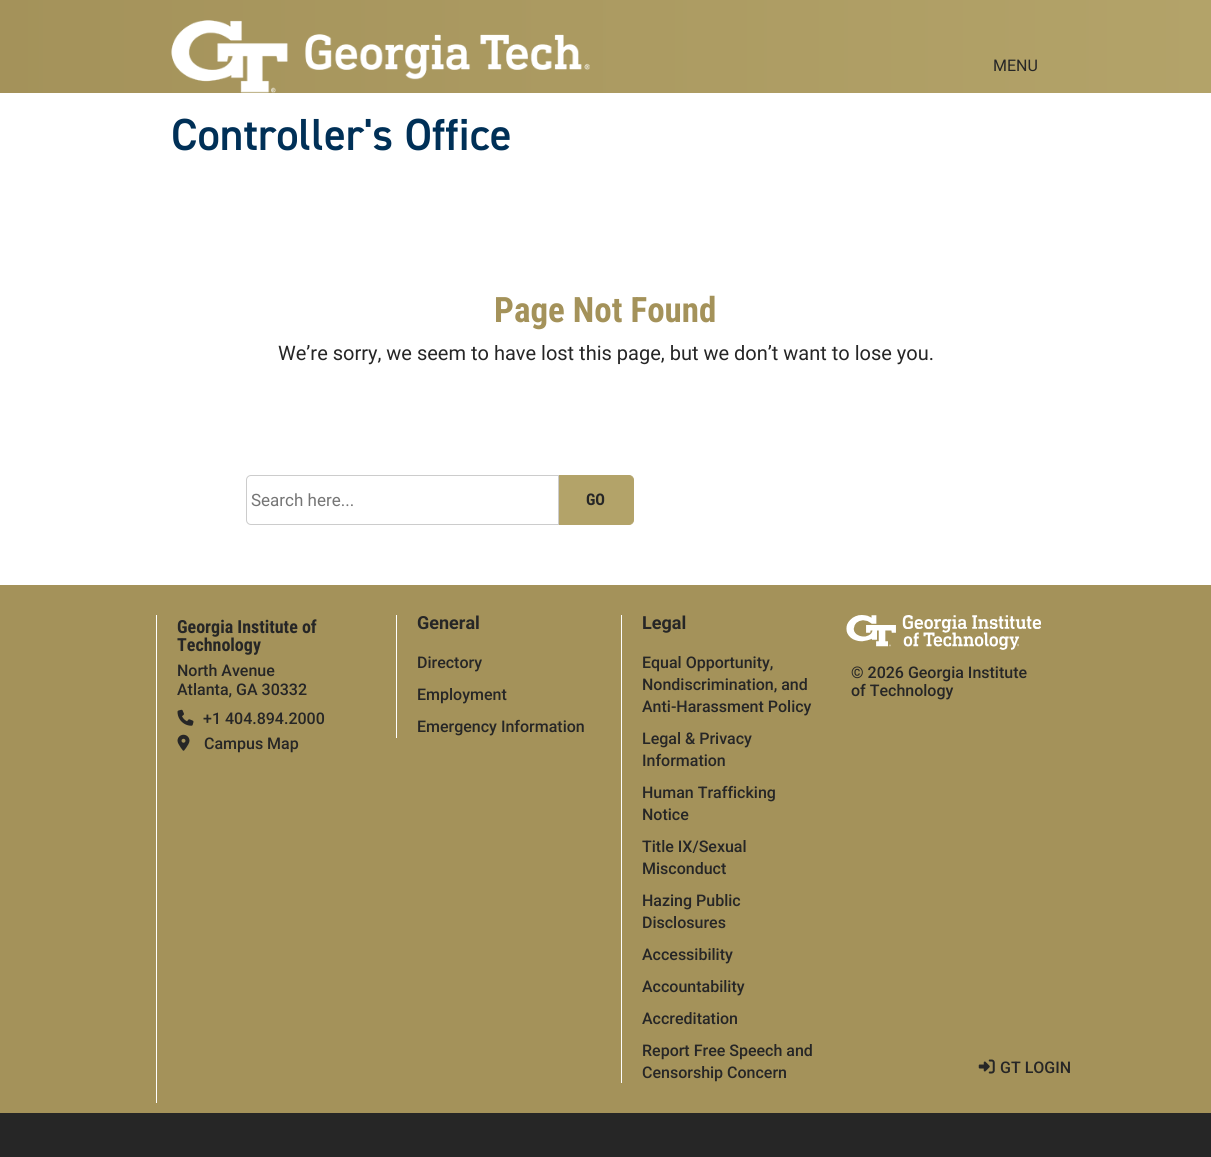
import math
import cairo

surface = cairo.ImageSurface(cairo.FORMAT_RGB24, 1211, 1157)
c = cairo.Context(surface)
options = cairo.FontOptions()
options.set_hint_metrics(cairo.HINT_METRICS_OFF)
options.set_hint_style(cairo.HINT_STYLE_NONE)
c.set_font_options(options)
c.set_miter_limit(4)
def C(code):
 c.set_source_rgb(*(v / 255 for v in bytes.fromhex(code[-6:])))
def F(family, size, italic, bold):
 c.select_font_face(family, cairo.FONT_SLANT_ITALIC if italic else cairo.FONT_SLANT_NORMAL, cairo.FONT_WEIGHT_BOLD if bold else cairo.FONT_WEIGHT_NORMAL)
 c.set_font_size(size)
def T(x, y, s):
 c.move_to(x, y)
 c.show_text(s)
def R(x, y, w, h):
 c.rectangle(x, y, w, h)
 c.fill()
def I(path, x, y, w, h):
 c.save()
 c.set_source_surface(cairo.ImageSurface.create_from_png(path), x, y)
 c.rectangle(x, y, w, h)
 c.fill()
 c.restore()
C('ffffff')
c.paint()
gradient = cairo.LinearGradient(0,46,1211,46)
gradient.add_color_stop_rgba(0,0.643,0.573,0.353,1)
gradient.add_color_stop_rgba(1,0.702,0.639,0.412,1)
c.set_source(gradient)
R(0,0,1211,93)
I('1.png',171,20,419,73)
F('Roboto',16,0,0)
C('262626')
T(993,71,'MENU')
F('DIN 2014 SemiBold',45,0,0)
C('003057')
T(171,150,'Controller\'s Office')
F('Roboto Condensed',35,0,1)
C('a4925a')
T(494,322,'Page Not Found')
F('Roboto',20,0,0)
C('262626')
T(278,360,'We’re sorry, we seem to have lost this page, but we don’t want to lose you.')
c.new_path()
c.move_to(251,475.5)
c.line_to(558.5,475.5)
c.line_to(558.5,524.5)
c.line_to(251,524.5)
c.curve_to(248.5,524.5,246.5,522.5,246.5,520)
c.line_to(246.5,480)
c.curve_to(246.5,477.5,248.5,475.5,251,475.5)
c.close_path()
C('cccccc')
c.set_line_width(1)
c.stroke()
F('Roboto',17,0,0)
C('757575')
T(251,506,'Search here...')
C('b3a369')
c.new_path()
c.move_to(559.5,475.5)
c.line_to(629,475.5)
c.curve_to(631.5,475.5,633.5,477.5,633.5,480)
c.line_to(633.5,520)
c.curve_to(633.5,522.5,631.5,524.5,629,524.5)
c.line_to(559.5,524.5)
c.close_path()
c.fill_preserve()
c.stroke()
F('Roboto Condensed',16,0,1)
C('262626')
T(586,505,'GO')
C('a4925a')
R(0,585,1211,528)
C('ffffff')
R(156,615,1,488)
F('Roboto Condensed',18,0,1)
C('262626')
T(177,633,'Georgia Institute of')
T(177,651,'Technology')
F('Roboto Medium',16,0,0)
T(177,676,'North Avenue')
T(177,695,'Atlanta, GA 30332')
I('2.png',177,709,17,17)
T(203,724,'+1 404.894.2000')
I('3.png',177,734,13,17)
T(204,749,'Campus Map')
C('ffffff')
R(396,615,1,123)
F('Roboto',18,0,1)
C('262626')
T(417,629,'General')
F('Roboto Medium',16,0,0)
T(417,668,'Directory')
T(417,700,'Employment')
T(417,732,'Emergency Information')
C('ffffff')
R(621,615,1,468)
F('Roboto',18,0,1)
C('262626')
T(642,629,'Legal')
F('Roboto Medium',16,0,0)
T(642,668,'Equal Opportunity,')
T(642,690,'Nondiscrimination, and')
T(642,712,'Anti-Harassment Policy')
T(642,744,'Legal & Privacy')
T(642,766,'Information')
T(642,798,'Human Trafficking')
T(642,820,'Notice')
T(642,852,'Title IX/Sexual')
T(642,874,'Misconduct')
T(642,906,'Hazing Public')
T(642,928,'Disclosures')
T(642,960,'Accessibility')
T(642,992,'Accountability')
T(642,1024,'Accreditation')
T(642,1056,'Report Free Speech and')
T(642,1078,'Censorship Concern')
I('4.png',846,615,195,35)
T(851,678,'© 2026 Georgia Institute')
T(851,696,'of Technology')
I('5.png',978,1059,17,15)
T(1000,1073,'GT LOGIN')
R(0,1113,1211,44)
surface.write_to_png('o.png')
